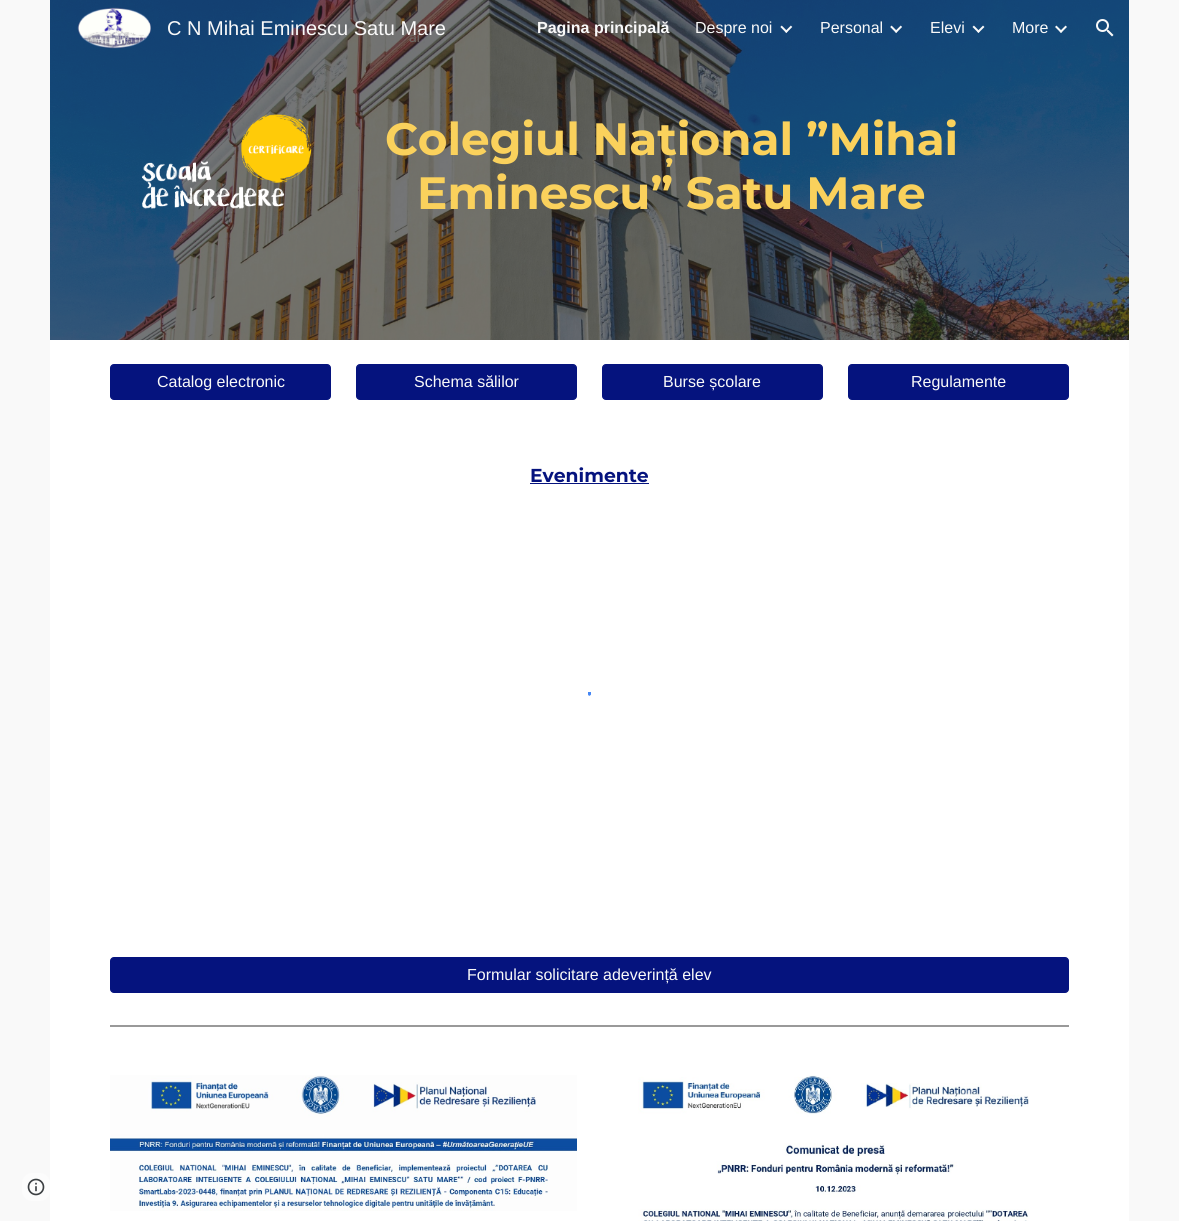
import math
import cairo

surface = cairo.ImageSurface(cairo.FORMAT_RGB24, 1179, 1221)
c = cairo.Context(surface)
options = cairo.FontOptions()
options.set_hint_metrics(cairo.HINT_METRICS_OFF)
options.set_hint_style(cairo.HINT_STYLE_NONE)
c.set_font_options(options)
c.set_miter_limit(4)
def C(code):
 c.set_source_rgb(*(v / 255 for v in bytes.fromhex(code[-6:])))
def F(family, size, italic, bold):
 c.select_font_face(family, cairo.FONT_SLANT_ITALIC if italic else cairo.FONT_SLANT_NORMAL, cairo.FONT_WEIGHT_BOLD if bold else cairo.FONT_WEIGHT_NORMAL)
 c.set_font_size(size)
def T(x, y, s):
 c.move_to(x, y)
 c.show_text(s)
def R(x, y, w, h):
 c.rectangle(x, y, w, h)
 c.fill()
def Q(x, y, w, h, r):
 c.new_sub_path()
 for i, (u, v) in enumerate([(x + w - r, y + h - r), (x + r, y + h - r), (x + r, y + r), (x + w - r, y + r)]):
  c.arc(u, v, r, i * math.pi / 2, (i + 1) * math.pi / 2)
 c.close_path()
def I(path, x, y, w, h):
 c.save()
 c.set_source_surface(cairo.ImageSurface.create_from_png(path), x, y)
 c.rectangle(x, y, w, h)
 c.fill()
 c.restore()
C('f9f9f9')
c.paint()
I('7.png',50,0,1079,340)
I('1.png',77,7,74,42)
F('Liberation Sans',20,0,0)
C('f9f9f9')
T(167,35,'C N Mihai Eminescu Satu Mare')
F('Liberation Sans',16,0,1)
T(537,33,'Pagina principală')
F('Liberation Sans',16,0,0)
T(695,33,'Despre noi')
I('2.png',780,25,13,8)
T(820,33,'Personal')
I('3.png',890,25,12,8)
T(930,33,'Elevi')
I('4.png',972,25,13,8)
T(1012,33,'More')
I('5.png',1055,25,12,8)
I('6.png',1096,19,18,18)
I('8.png',132,114,180,98)
F('Montserrat',45.3,0,1)
C('fad15c')
T(385,155,'Colegiul Național ”Mihai')
T(417,209,'Eminescu” Satu Mare')
C('ffffff')
R(50,340,1079,881)
C('05137e')
Q(110.5,364.5,220,35,3.5)
c.fill_preserve()
c.set_line_width(1)
c.stroke()
F('Liberation Sans',16,0,0)
C('f9f9f9')
T(157,387,'Catalog electronic')
C('05137e')
Q(356.5,364.5,220,35,3.5)
c.fill_preserve()
c.stroke()
C('f9f9f9')
T(414,387,'Schema sălilor')
C('05137e')
Q(602.5,364.5,220,35,3.5)
c.fill_preserve()
c.stroke()
C('f9f9f9')
T(663,387,'Burse școlare')
C('05137e')
Q(848.5,364.5,220,35,3.5)
c.fill_preserve()
c.stroke()
C('f9f9f9')
T(911,387,'Regulamente')
F('Montserrat',18.75,0,1)
C('05137e')
T(530,482,'Evenimente')
R(530,483,119,1)
c.save()
c.rectangle(576,692,14,28)
c.clip()
c.new_path()
c.move_to(588.5,694)
c.curve_to(605,692.5,607,717.5,590.5,718.5)
C('4486f4')
c.set_line_width(3)
c.stroke()
c.restore()
c.save()
c.rectangle(588,692,3,28)
c.clip()
c.new_path()
c.move_to(581,715)
c.curve_to(571,704.5,584,687,596,695.5)
c.curve_to(599,697.5,600.5,700.5,601.5,703.5)
c.curve_to(602,707.5,601,712,598,715)
C('4486f4')
c.set_line_width(3)
c.stroke()
c.restore()
c.save()
c.rectangle(590,692,14,28)
c.clip()
c.new_path()
c.move_to(588.5,718.5)
c.curve_to(572,717.5,574,692.5,590.5,694)
C('4486f4')
c.set_line_width(3)
c.stroke()
c.restore()
c.save()
c.rectangle(576,692,14,28)
c.clip()
c.new_path()
c.move_to(588.5,694)
c.curve_to(605,692.5,607,717.5,590.5,718.5)
c.move_to(588.5,694)
c.curve_to(605,692.5,607,717.5,590.5,718.5)
c.move_to(588.5,694)
c.curve_to(605,692.5,607,717.5,590.5,718.5)
C('4486f4')
c.set_line_width(3)
c.stroke()
c.restore()
Q(110.5,957.5,958,35,3.5)
c.fill_preserve()
c.stroke()
F('Liberation Sans',16,0,0)
C('f9f9f9')
T(467,980,'Formular solicitare adeverință elev')
C('999999')
R(110,1025,959,2)
I('9.png',110,1075,467,136)
I('10.png',638,1075,391,146)
C('fcfcfc')
Q(22,1173,28,28,10)
c.fill()
I('11.png',27,1178,18,18)
F('Google Sans Medium',14,0,0)
C('6e6763')
T(409,42,'ai')
surface.write_to_png('o.png')
